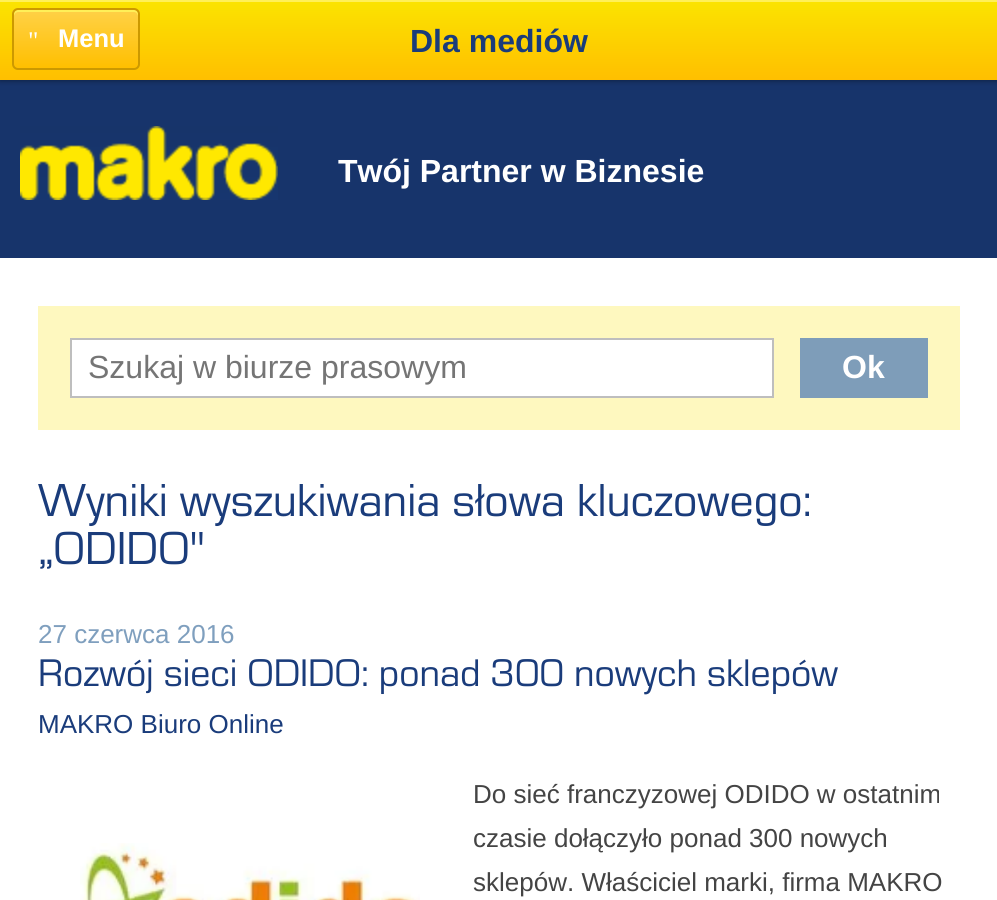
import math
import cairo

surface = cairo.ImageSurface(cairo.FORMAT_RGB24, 997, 900)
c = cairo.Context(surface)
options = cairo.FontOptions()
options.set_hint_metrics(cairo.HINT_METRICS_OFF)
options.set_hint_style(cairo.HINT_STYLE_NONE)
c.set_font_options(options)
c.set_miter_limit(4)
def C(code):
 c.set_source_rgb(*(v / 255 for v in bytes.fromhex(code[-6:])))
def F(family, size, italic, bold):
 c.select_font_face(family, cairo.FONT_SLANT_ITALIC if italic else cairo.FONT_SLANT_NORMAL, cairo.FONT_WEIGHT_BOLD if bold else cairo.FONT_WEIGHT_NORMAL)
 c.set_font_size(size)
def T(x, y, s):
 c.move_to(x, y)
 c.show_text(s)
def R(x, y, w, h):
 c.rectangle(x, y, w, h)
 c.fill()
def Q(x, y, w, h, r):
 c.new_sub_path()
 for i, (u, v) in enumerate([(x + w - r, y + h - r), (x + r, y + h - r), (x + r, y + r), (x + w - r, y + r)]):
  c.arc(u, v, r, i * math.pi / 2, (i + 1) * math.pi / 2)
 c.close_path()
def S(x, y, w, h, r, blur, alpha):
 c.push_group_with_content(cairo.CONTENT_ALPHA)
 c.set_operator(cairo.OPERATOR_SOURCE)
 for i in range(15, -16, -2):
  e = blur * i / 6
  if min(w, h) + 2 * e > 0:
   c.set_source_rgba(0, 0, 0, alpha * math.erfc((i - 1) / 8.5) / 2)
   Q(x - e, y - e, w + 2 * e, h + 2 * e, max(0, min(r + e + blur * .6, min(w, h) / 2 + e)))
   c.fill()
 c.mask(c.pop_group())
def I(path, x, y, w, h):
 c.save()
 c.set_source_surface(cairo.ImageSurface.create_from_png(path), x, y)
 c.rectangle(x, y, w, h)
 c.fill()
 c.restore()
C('17346b')
c.paint()
C('000000')
S(0,0,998,80,0,3,.5)
gradient = cairo.LinearGradient(499,0,499,80)
gradient.add_color_stop_rgba(0,0.984,0.894,0,1)
gradient.add_color_stop_rgba(1,1,0.749,0,1)
c.set_source(gradient)
R(0,2,997,78)
c.save()
Q(12,8,128,62,6)
c.clip()
gradient = cairo.LinearGradient(76,10,76,68)
gradient.add_color_stop_rgba(0,1,0.82,0.278,1)
gradient.add_color_stop_rgba(1,1,0.749,0,1)
c.set_source(gradient)
R(12,10,128,58)
c.restore()
C('fff058')
c.new_path()
c.move_to(18,12)
c.line_to(134,12)
c.curve_to(136,12,138,14,138,16)
c.line_to(138,14)
c.curve_to(138,12,136,10,134,10)
c.line_to(18,10)
c.curve_to(16,10,14,12,14,14)
c.line_to(14,16)
c.curve_to(14,14,16,12,18,12)
c.close_path()
c.fill()
Q(13,9,126,60,5)
C('cc9900')
c.stroke()
F('Liberation Serif',25.5,0,0)
C('ffffff')
T(28,49,'"')
F('Liberation Sans',25.5,0,1)
T(58,47,'Menu')
C('fff058')
R(0,0,997,2)
F('Liberation Sans',32,0,1)
C('1a3c7b')
T(410,52,'Dla mediów')
I('1.png',20,126,258,74)
C('ffffff')
T(338,182,'Twój Partner w Biznesie')
R(0,258,997,642)
C('fef8bf')
R(38,306,922,124)
C('ffffff')
c.rectangle(71,339,702,58)
c.fill_preserve()
C('bebebe')
c.stroke()
F('Liberation Sans',32,0,0)
C('757575')
T(88,378,'Szukaj w biurze prasowym')
C('7e9db9')
R(800,338,128,60)
F('Liberation Sans',32,0,1)
C('ffffff')
T(842,378,'Ok')
F('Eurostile',48,0,0)
C('1a3c7b')
T(38,516,'Wyniki wyszukiwania słowa kluczowego:')
T(38,564,'„ODIDO"')
F('Liberation Sans',26,0,0)
C('7f9fbe')
T(38,643,'27 czerwca 2016')
F('Eurostile',40,0,0)
C('1a3c7b')
T(38,686,'Rozwój sieci ODIDO: ponad 300 nowych sklepów')
F('Liberation Sans',26,0,0)
T(38,733,'MAKRO Biuro Online')
I('2.png',80,843,340,57)
C('444444')
T(473,803,'Do sieć franczyzowej ODIDO w ostatnim')
T(473,847,'czasie dołączyło ponad 300 nowych')
T(473,891,'sklepów. Właściciel marki, firma MAKRO')
surface.write_to_png('o.png')
